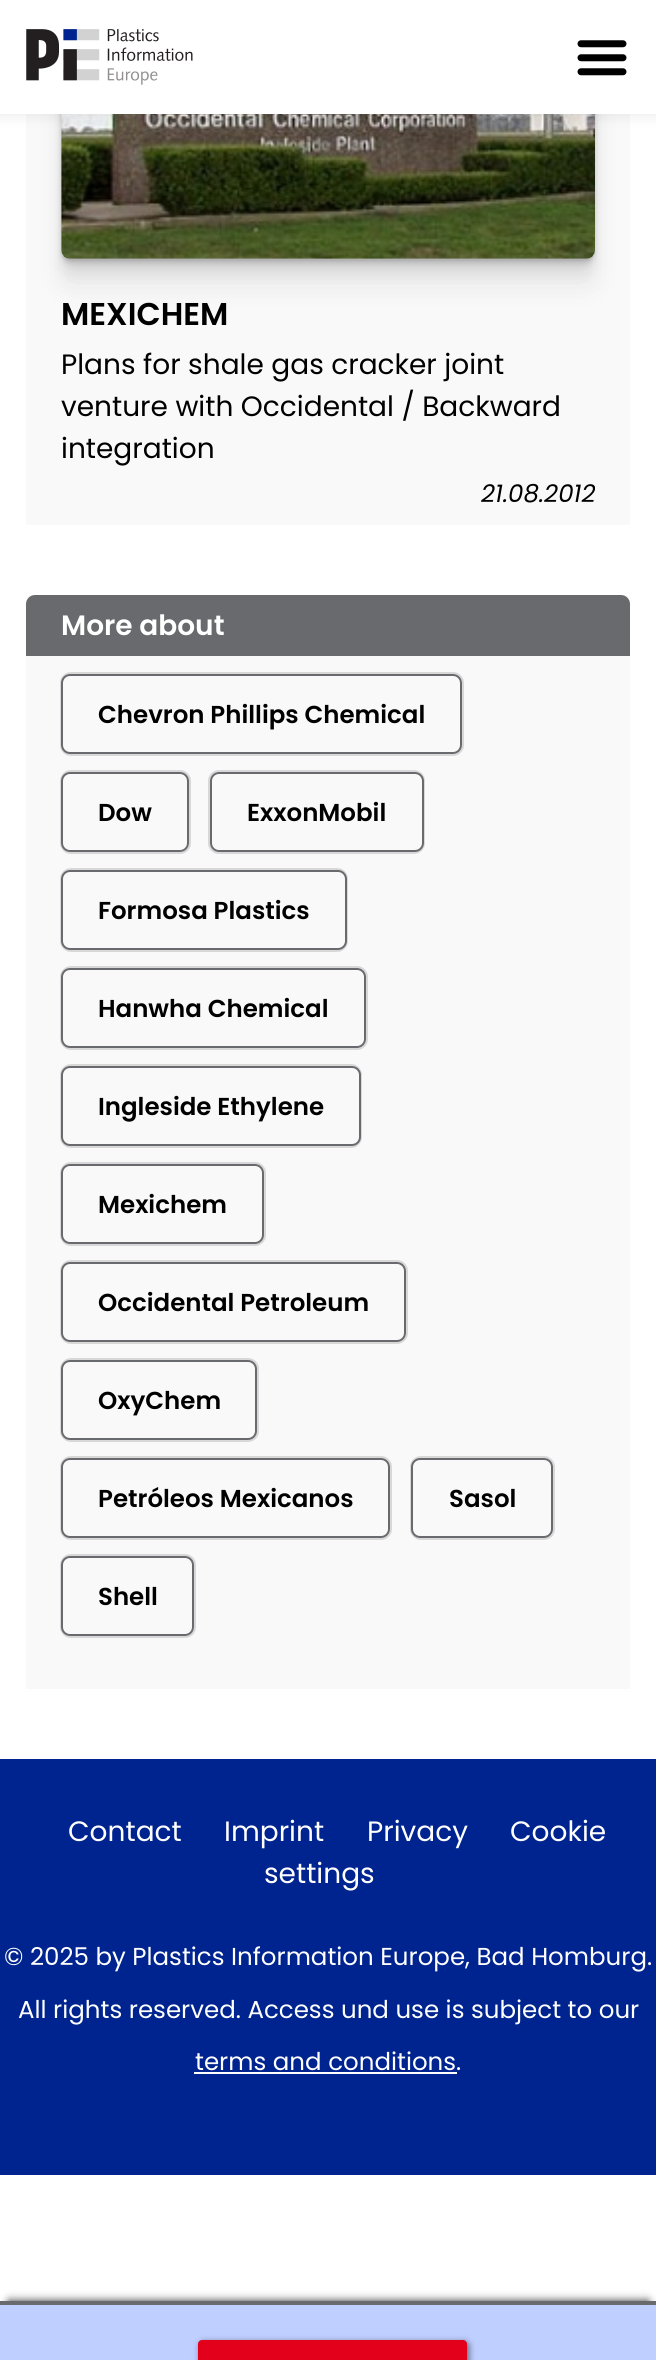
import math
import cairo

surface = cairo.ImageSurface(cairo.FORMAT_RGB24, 656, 2360)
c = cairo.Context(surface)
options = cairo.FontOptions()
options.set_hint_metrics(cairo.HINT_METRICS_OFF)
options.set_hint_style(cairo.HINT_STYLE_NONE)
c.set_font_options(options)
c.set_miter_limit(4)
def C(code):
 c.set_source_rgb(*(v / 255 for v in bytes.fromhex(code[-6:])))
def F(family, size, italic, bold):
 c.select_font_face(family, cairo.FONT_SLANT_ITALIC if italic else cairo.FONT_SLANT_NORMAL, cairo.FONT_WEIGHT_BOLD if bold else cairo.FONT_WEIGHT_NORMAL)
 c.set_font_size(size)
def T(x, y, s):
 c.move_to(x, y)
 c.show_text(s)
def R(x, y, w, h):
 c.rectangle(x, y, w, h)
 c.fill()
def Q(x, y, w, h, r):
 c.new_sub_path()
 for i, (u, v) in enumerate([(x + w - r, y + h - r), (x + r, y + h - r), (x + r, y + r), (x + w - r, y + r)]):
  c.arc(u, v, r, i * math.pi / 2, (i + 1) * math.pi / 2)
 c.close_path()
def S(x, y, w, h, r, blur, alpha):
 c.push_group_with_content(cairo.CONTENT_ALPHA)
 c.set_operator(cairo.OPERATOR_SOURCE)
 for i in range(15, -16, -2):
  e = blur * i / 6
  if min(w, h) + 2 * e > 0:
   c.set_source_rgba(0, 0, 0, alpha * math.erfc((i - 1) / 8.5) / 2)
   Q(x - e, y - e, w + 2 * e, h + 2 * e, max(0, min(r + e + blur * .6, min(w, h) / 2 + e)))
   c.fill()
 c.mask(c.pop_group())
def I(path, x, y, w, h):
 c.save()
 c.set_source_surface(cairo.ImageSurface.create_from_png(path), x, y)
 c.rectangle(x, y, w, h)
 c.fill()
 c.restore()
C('ffffff')
c.paint()
C('f9f9f9')
R(26,114,604,411)
C('000000')
S(61,-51,534,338,9,14,.07)
S(61,-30,534,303,9,7,.07)
S(61,-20,534,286,9,3.5,.07)
S(61,-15,534,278,9,2,.07)
S(61,-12,534,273,9,1,.07)
I('3.png',61,114,534,145)
S(-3,-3,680,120,0,7,.07)
C('ffffff')
R(0,0,656,114)
I('1.png',26,29,167,56)
I('2.png',577,40,50,36)
F('Poppins SemiBold',31.5,0,0)
C('000000')
T(61,325,'MEXICHEM')
F('Poppins',28,0,0)
T(61,374,'Plans for shale gas cracker joint')
T(61,416,'venture with Occidental / Backward')
T(61,458,'integration')
F('Poppins',24.5,1,0)
T(481,502,'21.08.2012')
C('696a6d')
c.new_path()
c.move_to(35,595)
c.line_to(621,595)
c.curve_to(626,595,630,599,630,604)
c.line_to(630,656)
c.line_to(26,656)
c.line_to(26,604)
c.curve_to(26,599,30,595,35,595)
c.close_path()
c.fill()
F('Poppins SemiBold',28,0,0)
C('ffffff')
T(61,635,'More about')
C('f9f9f9')
R(26,656,604,1033)
Q(61,673,402,82,10)
C('d8d8d9')
c.stroke()
Q(62,675,399,78,8)
C('696a6e')
c.stroke()
F('Poppins SemiBold',24.5,0,0)
C('000000')
T(98,723,'Chevron Phillips Chemical')
Q(61,771,129,82,10)
C('d8d8d9')
c.stroke()
Q(62,773,126,78,8)
C('696a6e')
c.stroke()
C('000000')
T(98,821,'Dow')
Q(209,771,215,82,10)
C('d8d8d9')
c.stroke()
Q(211,773,212,78,8)
C('696a6e')
c.stroke()
C('000000')
T(247,821,'ExxonMobil')
Q(61,869,286,82,10)
C('d8d8d9')
c.stroke()
Q(62,871,284,78,8)
C('696a6e')
c.stroke()
C('000000')
T(98,919,'Formosa Plastics')
Q(61,967,306,82,10)
C('d8d8d9')
c.stroke()
Q(62,969,303,78,8)
C('696a6e')
c.stroke()
C('000000')
T(98,1017,'Hanwha Chemical')
Q(61,1065,300,82,10)
C('d8d8d9')
c.stroke()
Q(62,1067,298,78,8)
C('696a6e')
c.stroke()
C('000000')
T(98,1115,'Ingleside Ethylene')
Q(61,1163,204,82,10)
C('d8d8d9')
c.stroke()
Q(62,1165,201,78,8)
C('696a6e')
c.stroke()
C('000000')
T(98,1213,'Mexichem')
Q(61,1261,346,82,10)
C('d8d8d9')
c.stroke()
Q(62,1263,343,78,8)
C('696a6e')
c.stroke()
C('000000')
T(98,1311,'Occidental Petroleum')
Q(61,1359,197,82,10)
C('d8d8d9')
c.stroke()
Q(62,1361,194,78,8)
C('696a6e')
c.stroke()
C('000000')
T(98,1409,'OxyChem')
Q(61,1457,330,82,10)
C('d8d8d9')
c.stroke()
Q(62,1459,327,78,8)
C('696a6e')
c.stroke()
C('000000')
T(98,1507,'Petróleos Mexicanos')
Q(411,1457,143,82,10)
C('d8d8d9')
c.stroke()
Q(412,1459,140,78,8)
C('696a6e')
c.stroke()
C('000000')
T(449,1507,'Sasol')
Q(61,1555,134,82,10)
C('d8d8d9')
c.stroke()
Q(62,1557,131,78,8)
C('696a6e')
c.stroke()
C('000000')
T(98,1605,'Shell')
C('00248f')
R(0,1759,656,416)
F('Poppins',28,0,0)
C('ffffff')
T(68,1841,'Contact')
T(224,1841,'Imprint')
T(367,1841,'Privacy')
T(510,1841,'Cookie')
T(264,1883,'settings')
F('Poppins',24.5,0,0)
T(4,1965,'© 2025 by Plastics Information Europe, Bad Homburg.')
T(18,2018,'All rights reserved. Access und use is subject to our')
T(195,2070,'terms and conditions.')
R(194,2072,263,2)
C('333333')
S(9,2301,639,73,0,4.5,1)
C('bfcfff')
R(0,2305,656,55)
C('696a6d')
R(0,2301,656,4)
C('000000')
S(200,2342,269,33,4,3.5,.5)
C('e3001b')
Q(198,2340,269,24,4)
c.fill()
surface.write_to_png('o.png')
